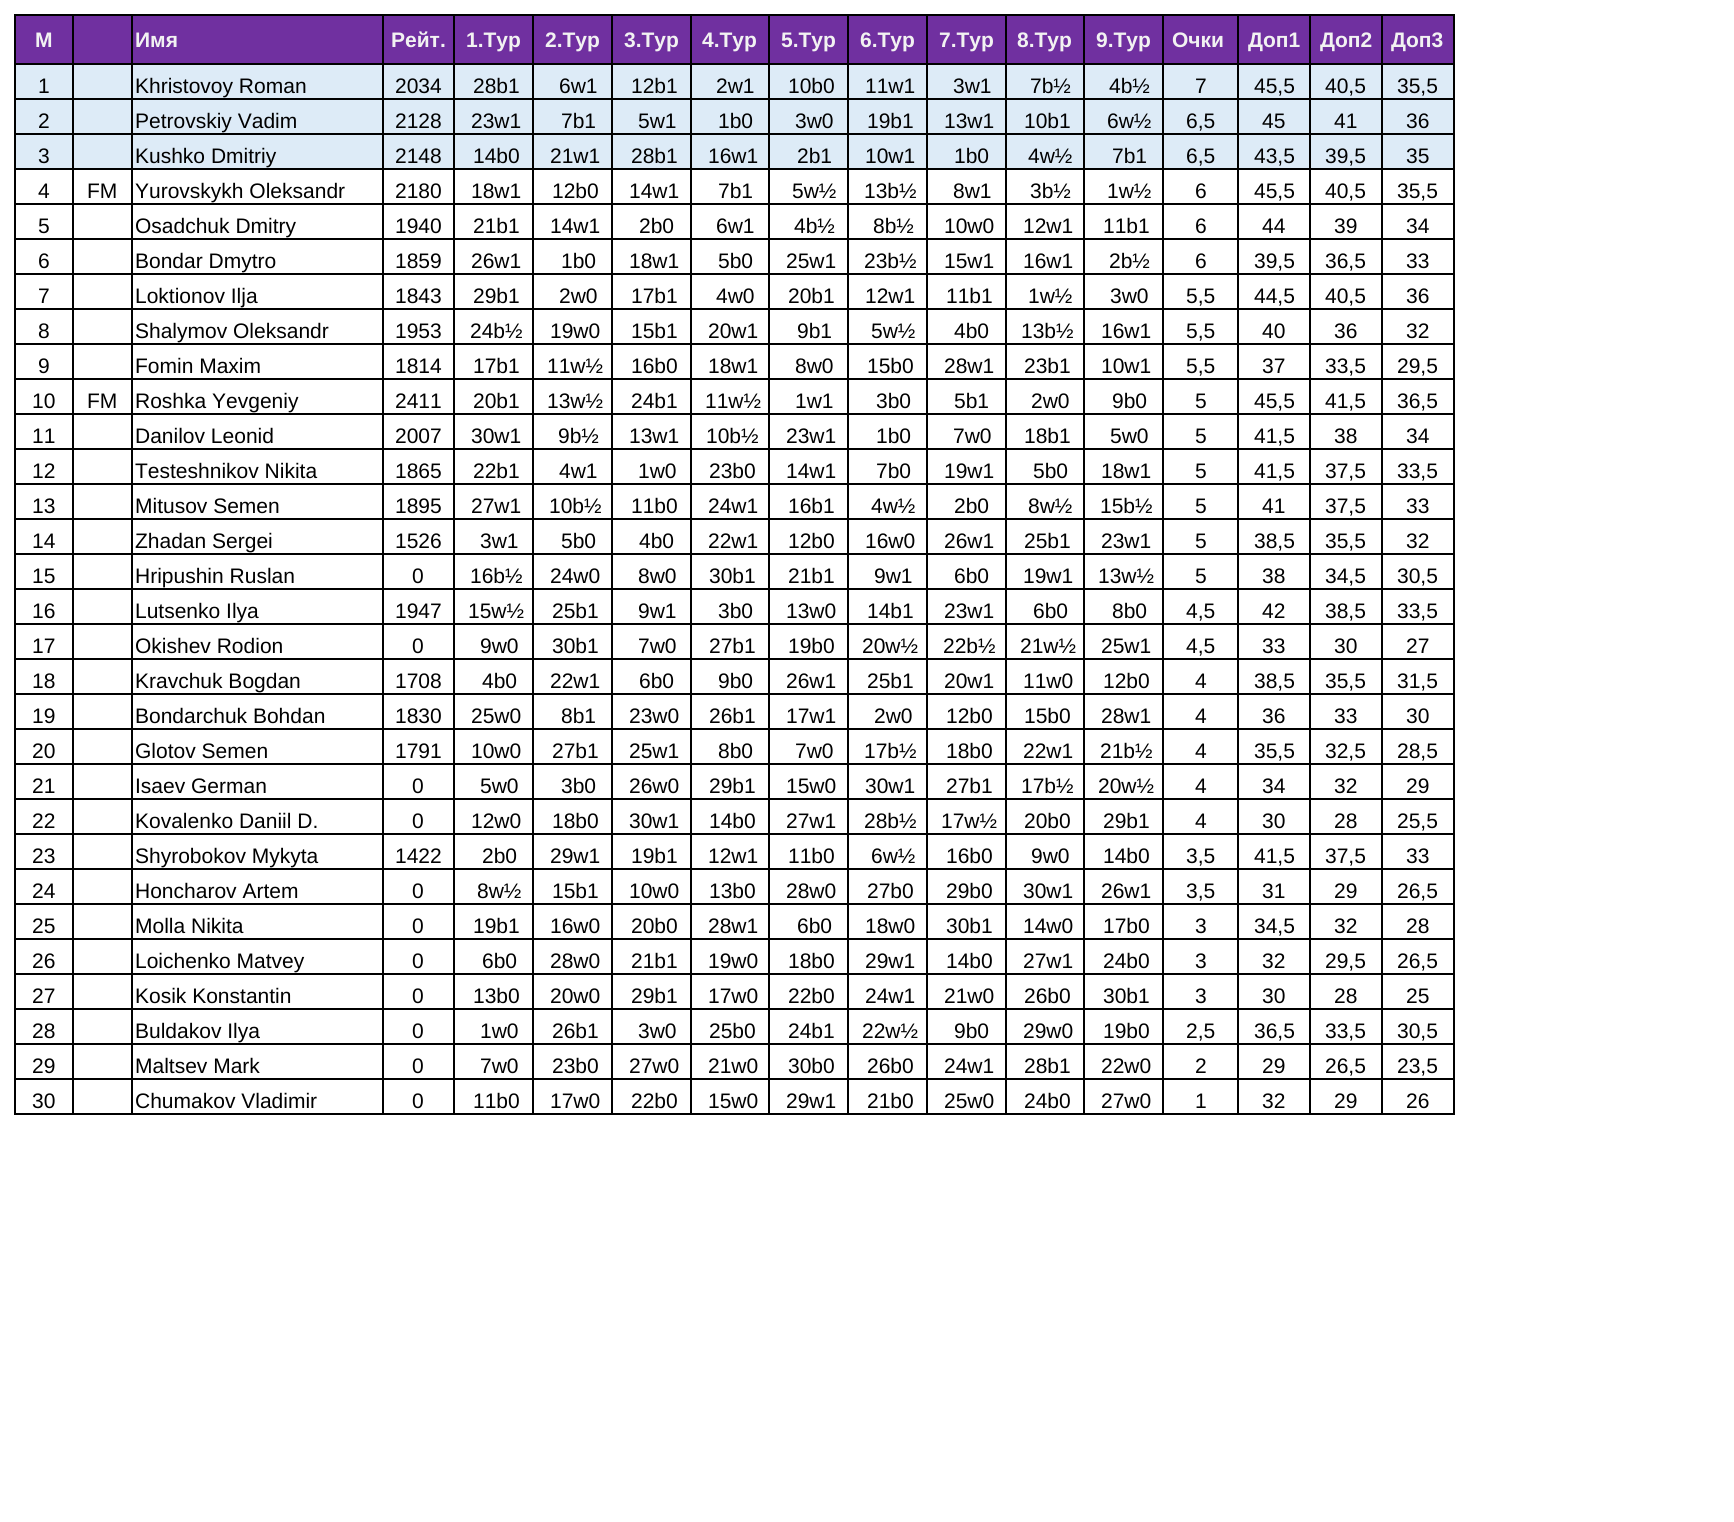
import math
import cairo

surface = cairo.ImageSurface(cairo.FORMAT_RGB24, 1734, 1522)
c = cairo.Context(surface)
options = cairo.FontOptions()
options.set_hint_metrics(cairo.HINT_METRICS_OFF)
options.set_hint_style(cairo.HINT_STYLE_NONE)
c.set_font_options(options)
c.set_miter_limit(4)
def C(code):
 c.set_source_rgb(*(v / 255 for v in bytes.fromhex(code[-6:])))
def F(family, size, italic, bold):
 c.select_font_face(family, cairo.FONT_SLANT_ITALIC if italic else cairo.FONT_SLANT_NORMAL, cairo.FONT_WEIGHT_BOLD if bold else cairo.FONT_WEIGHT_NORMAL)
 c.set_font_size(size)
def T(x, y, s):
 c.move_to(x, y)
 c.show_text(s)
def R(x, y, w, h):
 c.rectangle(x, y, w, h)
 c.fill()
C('ffffff')
c.paint()
C('7030a0')
R(16,16,56,47)
C('000000')
R(1381,14,73,2)
R(1381,63,73,2)
R(1381,98,73,2)
R(1381,133,73,2)
R(1381,168,73,2)
R(1381,203,73,2)
R(1381,238,73,2)
R(1381,273,73,2)
R(1381,308,73,2)
R(1381,343,73,2)
R(1381,378,73,2)
R(1381,413,73,2)
R(1381,448,73,2)
R(1381,483,73,2)
R(1381,518,73,2)
R(1381,553,73,2)
R(1381,588,73,2)
R(1381,623,73,2)
R(1381,658,73,2)
R(1381,693,73,2)
R(1381,728,73,2)
R(1381,763,73,2)
R(1381,798,73,2)
R(1381,833,73,2)
R(1381,868,73,2)
R(1381,903,73,2)
R(1381,938,73,2)
R(1381,973,73,2)
R(1381,1008,73,2)
R(1381,1043,73,2)
R(1381,1078,73,2)
R(1453,1078,2,37)
R(1381,1113,73,2)
R(1381,1078,2,37)
R(1309,1078,74,2)
R(1381,1043,2,37)
R(1309,1043,74,2)
R(1381,1008,2,37)
R(1309,1008,74,2)
R(1381,973,2,37)
R(1309,973,74,2)
R(1381,938,2,37)
R(1309,938,74,2)
R(1381,903,2,37)
R(1309,903,74,2)
R(1381,868,2,37)
R(1309,868,74,2)
R(1381,833,2,37)
R(1309,833,74,2)
R(1381,798,2,37)
R(1309,798,74,2)
R(1381,763,2,37)
R(1309,763,74,2)
R(1381,728,2,37)
R(1309,728,74,2)
R(1381,693,2,37)
R(1309,693,74,2)
R(1381,658,2,37)
R(1309,658,74,2)
R(1381,623,2,37)
R(1309,623,74,2)
R(1381,588,2,37)
R(1309,588,74,2)
R(1381,553,2,37)
R(1309,553,74,2)
R(1381,518,2,37)
R(1309,518,74,2)
R(1381,483,2,37)
R(1309,483,74,2)
R(1381,448,2,37)
R(1309,448,74,2)
R(1381,413,2,37)
R(1309,413,74,2)
R(1381,378,2,37)
R(1309,378,74,2)
R(1381,343,2,37)
R(1309,343,74,2)
R(1381,308,2,37)
R(1309,308,74,2)
R(1381,273,2,37)
R(1309,273,74,2)
R(1381,238,2,37)
R(1309,238,74,2)
R(1381,203,2,37)
R(1309,203,74,2)
R(1381,168,2,37)
R(1309,168,74,2)
R(1381,133,2,37)
R(1309,133,74,2)
R(1381,98,2,37)
R(1309,98,74,2)
R(1381,63,2,37)
R(1309,63,74,2)
R(1381,14,2,51)
R(1309,14,74,2)
R(1309,1113,74,2)
R(1309,1078,2,37)
R(1237,1078,74,2)
R(1309,1043,2,37)
R(1237,1043,74,2)
R(1309,1008,2,37)
R(1237,1008,74,2)
R(1309,973,2,37)
R(1237,973,74,2)
R(1309,938,2,37)
R(1237,938,74,2)
R(1309,903,2,37)
R(1237,903,74,2)
R(1309,868,2,37)
R(1237,868,74,2)
R(1309,833,2,37)
R(1237,833,74,2)
R(1309,798,2,37)
R(1237,798,74,2)
R(1309,763,2,37)
R(1237,763,74,2)
R(1309,728,2,37)
R(1237,728,74,2)
R(1309,693,2,37)
R(1237,693,74,2)
R(1309,658,2,37)
R(1237,658,74,2)
R(1309,623,2,37)
R(1237,623,74,2)
R(1309,588,2,37)
R(1237,588,74,2)
R(1309,553,2,37)
R(1237,553,74,2)
R(1309,518,2,37)
R(1237,518,74,2)
R(1309,483,2,37)
R(1237,483,74,2)
R(1309,448,2,37)
R(1237,448,74,2)
R(1309,413,2,37)
R(1237,413,74,2)
R(1309,378,2,37)
R(1237,378,74,2)
R(1309,343,2,37)
R(1237,343,74,2)
R(1309,308,2,37)
R(1237,308,74,2)
R(1309,273,2,37)
R(1237,273,74,2)
R(1309,238,2,37)
R(1237,238,74,2)
R(1309,203,2,37)
R(1237,203,74,2)
R(1309,168,2,37)
R(1237,168,74,2)
R(1309,133,2,37)
R(1237,133,74,2)
R(1309,98,2,37)
R(1237,98,74,2)
R(1309,63,2,37)
R(1237,63,74,2)
R(1309,14,2,51)
R(1237,14,74,2)
R(1237,1113,74,2)
R(1237,1078,2,37)
R(1162,1078,77,2)
R(1237,1043,2,37)
R(1162,1043,77,2)
R(1237,1008,2,37)
R(1162,1008,77,2)
R(1237,973,2,37)
R(1162,973,77,2)
R(1237,938,2,37)
R(1162,938,77,2)
R(1237,903,2,37)
R(1162,903,77,2)
R(1237,868,2,37)
R(1162,868,77,2)
R(1237,833,2,37)
R(1162,833,77,2)
R(1237,798,2,37)
R(1162,798,77,2)
R(1237,763,2,37)
R(1162,763,77,2)
R(1237,728,2,37)
R(1162,728,77,2)
R(1237,693,2,37)
R(1162,693,77,2)
R(1237,658,2,37)
R(1162,658,77,2)
R(1237,623,2,37)
R(1162,623,77,2)
R(1237,588,2,37)
R(1162,588,77,2)
R(1237,553,2,37)
R(1162,553,77,2)
R(1237,518,2,37)
R(1162,518,77,2)
R(1237,483,2,37)
R(1162,483,77,2)
R(1237,448,2,37)
R(1162,448,77,2)
R(1237,413,2,37)
R(1162,413,77,2)
R(1237,378,2,37)
R(1162,378,77,2)
R(1237,343,2,37)
R(1162,343,77,2)
R(1237,308,2,37)
R(1162,308,77,2)
R(1237,273,2,37)
R(1162,273,77,2)
R(1237,238,2,37)
R(1162,238,77,2)
R(1237,203,2,37)
R(1162,203,77,2)
R(1237,168,2,37)
R(1162,168,77,2)
R(1237,133,2,37)
R(1162,133,77,2)
R(1237,98,2,37)
R(1162,98,77,2)
R(1237,63,2,37)
R(1162,63,77,2)
R(1237,14,2,51)
R(1162,14,77,2)
R(1162,1113,77,2)
R(1162,1078,2,37)
R(1083,1078,81,2)
R(1162,1043,2,37)
R(1083,1043,81,2)
R(1162,1008,2,37)
R(1083,1008,81,2)
R(1162,973,2,37)
R(1083,973,81,2)
R(1162,938,2,37)
R(1083,938,81,2)
R(1162,903,2,37)
R(1083,903,81,2)
R(1162,868,2,37)
R(1083,868,81,2)
R(1162,833,2,37)
R(1083,833,81,2)
R(1162,798,2,37)
R(1083,798,81,2)
R(1162,763,2,37)
R(1083,763,81,2)
R(1162,728,2,37)
R(1083,728,81,2)
R(1162,693,2,37)
R(1083,693,81,2)
R(1162,658,2,37)
R(1083,658,81,2)
R(1162,623,2,37)
R(1083,623,81,2)
R(1162,588,2,37)
R(1083,588,81,2)
R(1162,553,2,37)
R(1083,553,81,2)
R(1162,518,2,37)
R(1083,518,81,2)
R(1162,483,2,37)
R(1083,483,81,2)
R(1162,448,2,37)
R(1083,448,81,2)
R(1162,413,2,37)
R(1083,413,81,2)
R(1162,378,2,37)
R(1083,378,81,2)
R(1162,343,2,37)
R(1083,343,81,2)
R(1162,308,2,37)
R(1083,308,81,2)
R(1162,273,2,37)
R(1083,273,81,2)
R(1162,238,2,37)
R(1083,238,81,2)
R(1162,203,2,37)
R(1083,203,81,2)
R(1162,168,2,37)
R(1083,168,81,2)
R(1162,133,2,37)
R(1083,133,81,2)
R(1162,98,2,37)
R(1083,98,81,2)
R(1162,63,2,37)
R(1083,63,81,2)
R(1162,14,2,51)
R(1083,14,81,2)
R(1083,1113,81,2)
R(1083,1078,2,37)
R(1005,1078,80,2)
R(1083,1043,2,37)
R(1005,1043,80,2)
R(1083,1008,2,37)
R(1005,1008,80,2)
R(1083,973,2,37)
R(1005,973,80,2)
R(1083,938,2,37)
R(1005,938,80,2)
R(1083,903,2,37)
R(1005,903,80,2)
R(1083,868,2,37)
R(1005,868,80,2)
R(1083,833,2,37)
R(1005,833,80,2)
R(1083,798,2,37)
R(1005,798,80,2)
R(1083,763,2,37)
R(1005,763,80,2)
R(1083,728,2,37)
R(1005,728,80,2)
R(1083,693,2,37)
R(1005,693,80,2)
R(1083,658,2,37)
R(1005,658,80,2)
R(1083,623,2,37)
R(1005,623,80,2)
R(1083,588,2,37)
R(1005,588,80,2)
R(1083,553,2,37)
R(1005,553,80,2)
R(1083,518,2,37)
R(1005,518,80,2)
R(1083,483,2,37)
R(1005,483,80,2)
R(1083,448,2,37)
R(1005,448,80,2)
R(1083,413,2,37)
R(1005,413,80,2)
R(1083,378,2,37)
R(1005,378,80,2)
R(1083,343,2,37)
R(1005,343,80,2)
R(1083,308,2,37)
R(1005,308,80,2)
R(1083,273,2,37)
R(1005,273,80,2)
R(1083,238,2,37)
R(1005,238,80,2)
R(1083,203,2,37)
R(1005,203,80,2)
R(1083,168,2,37)
R(1005,168,80,2)
R(1083,133,2,37)
R(1005,133,80,2)
R(1083,98,2,37)
R(1005,98,80,2)
R(1083,63,2,37)
R(1005,63,80,2)
R(1083,14,2,51)
R(1005,14,80,2)
R(1005,1113,80,2)
R(1005,1078,2,37)
R(926,1078,80,2)
R(1005,1043,2,37)
R(926,1043,80,2)
R(1005,1008,2,37)
R(926,1008,80,2)
R(1005,973,2,37)
R(926,973,80,2)
R(1005,938,2,37)
R(926,938,80,2)
R(1005,903,2,37)
R(926,903,80,2)
R(1005,868,2,37)
R(926,868,80,2)
R(1005,833,2,37)
R(926,833,80,2)
R(1005,798,2,37)
R(926,798,80,2)
R(1005,763,2,37)
R(926,763,80,2)
R(1005,728,2,37)
R(926,728,80,2)
R(1005,693,2,37)
R(926,693,80,2)
R(1005,658,2,37)
R(926,658,80,2)
R(1005,623,2,37)
R(926,623,80,2)
R(1005,588,2,37)
R(926,588,80,2)
R(1005,553,2,37)
R(926,553,80,2)
R(1005,518,2,37)
R(926,518,80,2)
R(1005,483,2,37)
R(926,483,80,2)
R(1005,448,2,37)
R(926,448,80,2)
R(1005,413,2,37)
R(926,413,80,2)
R(1005,378,2,37)
R(926,378,80,2)
R(1005,343,2,37)
R(926,343,80,2)
R(1005,308,2,37)
R(926,308,80,2)
R(1005,273,2,37)
R(926,273,80,2)
R(1005,238,2,37)
R(926,238,80,2)
R(1005,203,2,37)
R(926,203,80,2)
R(1005,168,2,37)
R(926,168,80,2)
R(1005,133,2,37)
R(926,133,80,2)
R(1005,98,2,37)
R(926,98,80,2)
R(1005,63,2,37)
R(926,63,80,2)
R(1005,14,2,51)
R(926,14,80,2)
R(926,1113,80,2)
R(926,1078,2,37)
R(847,1078,81,2)
R(926,1043,2,37)
R(847,1043,81,2)
R(926,1008,2,37)
R(847,1008,81,2)
R(926,973,2,37)
R(847,973,81,2)
R(926,938,2,37)
R(847,938,81,2)
R(926,903,2,37)
R(847,903,81,2)
R(926,868,2,37)
R(847,868,81,2)
R(926,833,2,37)
R(847,833,81,2)
R(926,798,2,37)
R(847,798,81,2)
R(926,763,2,37)
R(847,763,81,2)
R(926,728,2,37)
R(847,728,81,2)
R(926,693,2,37)
R(847,693,81,2)
R(926,658,2,37)
R(847,658,81,2)
R(926,623,2,37)
R(847,623,81,2)
R(926,588,2,37)
R(847,588,81,2)
R(926,553,2,37)
R(847,553,81,2)
R(926,518,2,37)
R(847,518,81,2)
R(926,483,2,37)
R(847,483,81,2)
R(926,448,2,37)
R(847,448,81,2)
R(926,413,2,37)
R(847,413,81,2)
R(926,378,2,37)
R(847,378,81,2)
R(926,343,2,37)
R(847,343,81,2)
R(926,308,2,37)
R(847,308,81,2)
R(926,273,2,37)
R(847,273,81,2)
R(926,238,2,37)
R(847,238,81,2)
R(926,203,2,37)
R(847,203,81,2)
R(926,168,2,37)
R(847,168,81,2)
R(926,133,2,37)
R(847,133,81,2)
R(926,98,2,37)
R(847,98,81,2)
R(926,63,2,37)
R(847,63,81,2)
R(926,14,2,51)
R(847,14,81,2)
R(847,1113,81,2)
R(847,1078,2,37)
R(768,1078,81,2)
R(847,1043,2,37)
R(768,1043,81,2)
R(847,1008,2,37)
R(768,1008,81,2)
R(847,973,2,37)
R(768,973,81,2)
R(847,938,2,37)
R(768,938,81,2)
R(847,903,2,37)
R(768,903,81,2)
R(847,868,2,37)
R(768,868,81,2)
R(847,833,2,37)
R(768,833,81,2)
R(847,798,2,37)
R(768,798,81,2)
R(847,763,2,37)
R(768,763,81,2)
R(847,728,2,37)
R(768,728,81,2)
R(847,693,2,37)
R(768,693,81,2)
R(847,658,2,37)
R(768,658,81,2)
R(847,623,2,37)
R(768,623,81,2)
R(847,588,2,37)
R(768,588,81,2)
R(847,553,2,37)
R(768,553,81,2)
R(847,518,2,37)
R(768,518,81,2)
R(847,483,2,37)
R(768,483,81,2)
R(847,448,2,37)
R(768,448,81,2)
R(847,413,2,37)
R(768,413,81,2)
R(847,378,2,37)
R(768,378,81,2)
R(847,343,2,37)
R(768,343,81,2)
R(847,308,2,37)
R(768,308,81,2)
R(847,273,2,37)
R(768,273,81,2)
R(847,238,2,37)
R(768,238,81,2)
R(847,203,2,37)
R(768,203,81,2)
R(847,168,2,37)
R(768,168,81,2)
R(847,133,2,37)
R(768,133,81,2)
R(847,98,2,37)
R(768,98,81,2)
R(847,63,2,37)
R(768,63,81,2)
R(847,14,2,51)
R(768,14,81,2)
R(768,1113,81,2)
R(768,1078,2,37)
R(690,1078,80,2)
R(768,1043,2,37)
R(690,1043,80,2)
R(768,1008,2,37)
R(690,1008,80,2)
R(768,973,2,37)
R(690,973,80,2)
R(768,938,2,37)
R(690,938,80,2)
R(768,903,2,37)
R(690,903,80,2)
R(768,868,2,37)
R(690,868,80,2)
R(768,833,2,37)
R(690,833,80,2)
R(768,798,2,37)
R(690,798,80,2)
R(768,763,2,37)
R(690,763,80,2)
R(768,728,2,37)
R(690,728,80,2)
R(768,693,2,37)
R(690,693,80,2)
R(768,658,2,37)
R(690,658,80,2)
R(768,623,2,37)
R(690,623,80,2)
R(768,588,2,37)
R(690,588,80,2)
R(768,553,2,37)
R(690,553,80,2)
R(768,518,2,37)
R(690,518,80,2)
R(768,483,2,37)
R(690,483,80,2)
R(768,448,2,37)
R(690,448,80,2)
R(768,413,2,37)
R(690,413,80,2)
R(768,378,2,37)
R(690,378,80,2)
R(768,343,2,37)
R(690,343,80,2)
R(768,308,2,37)
R(690,308,80,2)
R(768,273,2,37)
R(690,273,80,2)
R(768,238,2,37)
R(690,238,80,2)
R(768,203,2,37)
R(690,203,80,2)
R(768,168,2,37)
R(690,168,80,2)
R(768,133,2,37)
R(690,133,80,2)
R(768,98,2,37)
R(690,98,80,2)
R(768,63,2,37)
R(690,63,80,2)
R(768,14,2,51)
R(690,14,80,2)
R(690,1113,80,2)
R(690,1078,2,37)
R(611,1078,80,2)
R(690,1043,2,37)
R(611,1043,80,2)
R(690,1008,2,37)
R(611,1008,80,2)
R(690,973,2,37)
R(611,973,80,2)
R(690,938,2,37)
R(611,938,80,2)
R(690,903,2,37)
R(611,903,80,2)
R(690,868,2,37)
R(611,868,80,2)
R(690,833,2,37)
R(611,833,80,2)
R(690,798,2,37)
R(611,798,80,2)
R(690,763,2,37)
R(611,763,80,2)
R(690,728,2,37)
R(611,728,80,2)
R(690,693,2,37)
R(611,693,80,2)
R(690,658,2,37)
R(611,658,80,2)
R(690,623,2,37)
R(611,623,80,2)
R(690,588,2,37)
R(611,588,80,2)
R(690,553,2,37)
R(611,553,80,2)
R(690,518,2,37)
R(611,518,80,2)
R(690,483,2,37)
R(611,483,80,2)
R(690,448,2,37)
R(611,448,80,2)
R(690,413,2,37)
R(611,413,80,2)
R(690,378,2,37)
R(611,378,80,2)
R(690,343,2,37)
R(611,343,80,2)
R(690,308,2,37)
R(611,308,80,2)
R(690,273,2,37)
R(611,273,80,2)
R(690,238,2,37)
R(611,238,80,2)
R(690,203,2,37)
R(611,203,80,2)
R(690,168,2,37)
R(611,168,80,2)
R(690,133,2,37)
R(611,133,80,2)
R(690,98,2,37)
R(611,98,80,2)
R(690,63,2,37)
R(611,63,80,2)
R(690,14,2,51)
R(611,14,80,2)
R(611,1113,80,2)
R(611,1078,2,37)
R(532,1078,81,2)
R(611,1043,2,37)
R(532,1043,81,2)
R(611,1008,2,37)
R(532,1008,81,2)
R(611,973,2,37)
R(532,973,81,2)
R(611,938,2,37)
R(532,938,81,2)
R(611,903,2,37)
R(532,903,81,2)
R(611,868,2,37)
R(532,868,81,2)
R(611,833,2,37)
R(532,833,81,2)
R(611,798,2,37)
R(532,798,81,2)
R(611,763,2,37)
R(532,763,81,2)
R(611,728,2,37)
R(532,728,81,2)
R(611,693,2,37)
R(532,693,81,2)
R(611,658,2,37)
R(532,658,81,2)
R(611,623,2,37)
R(532,623,81,2)
R(611,588,2,37)
R(532,588,81,2)
R(611,553,2,37)
R(532,553,81,2)
R(611,518,2,37)
R(532,518,81,2)
R(611,483,2,37)
R(532,483,81,2)
R(611,448,2,37)
R(532,448,81,2)
R(611,413,2,37)
R(532,413,81,2)
R(611,378,2,37)
R(532,378,81,2)
R(611,343,2,37)
R(532,343,81,2)
R(611,308,2,37)
R(532,308,81,2)
R(611,273,2,37)
R(532,273,81,2)
R(611,238,2,37)
R(532,238,81,2)
R(611,203,2,37)
R(532,203,81,2)
R(611,168,2,37)
R(532,168,81,2)
R(611,133,2,37)
R(532,133,81,2)
R(611,98,2,37)
R(532,98,81,2)
R(611,63,2,37)
R(532,63,81,2)
R(611,14,2,51)
R(532,14,81,2)
R(532,1113,81,2)
R(532,1078,2,37)
R(453,1078,81,2)
R(532,1043,2,37)
R(453,1043,81,2)
R(532,1008,2,37)
R(453,1008,81,2)
R(532,973,2,37)
R(453,973,81,2)
R(532,938,2,37)
R(453,938,81,2)
R(532,903,2,37)
R(453,903,81,2)
R(532,868,2,37)
R(453,868,81,2)
R(532,833,2,37)
R(453,833,81,2)
R(532,798,2,37)
R(453,798,81,2)
R(532,763,2,37)
R(453,763,81,2)
R(532,728,2,37)
R(453,728,81,2)
R(532,693,2,37)
R(453,693,81,2)
R(532,658,2,37)
R(453,658,81,2)
R(532,623,2,37)
R(453,623,81,2)
R(532,588,2,37)
R(453,588,81,2)
R(532,553,2,37)
R(453,553,81,2)
R(532,518,2,37)
R(453,518,81,2)
R(532,483,2,37)
R(453,483,81,2)
R(532,448,2,37)
R(453,448,81,2)
R(532,413,2,37)
R(453,413,81,2)
R(532,378,2,37)
R(453,378,81,2)
R(532,343,2,37)
R(453,343,81,2)
R(532,308,2,37)
R(453,308,81,2)
R(532,273,2,37)
R(453,273,81,2)
R(532,238,2,37)
R(453,238,81,2)
R(532,203,2,37)
R(453,203,81,2)
R(532,168,2,37)
R(453,168,81,2)
R(532,133,2,37)
R(453,133,81,2)
R(532,98,2,37)
R(453,98,81,2)
R(532,63,2,37)
R(453,63,81,2)
R(532,14,2,51)
R(453,14,81,2)
R(453,1113,81,2)
R(453,1078,2,37)
R(382,1078,73,2)
R(453,1043,2,37)
R(382,1043,73,2)
R(453,1008,2,37)
R(382,1008,73,2)
R(453,973,2,37)
R(382,973,73,2)
R(453,938,2,37)
R(382,938,73,2)
R(453,903,2,37)
R(382,903,73,2)
R(453,868,2,37)
R(382,868,73,2)
R(453,833,2,37)
R(382,833,73,2)
R(453,798,2,37)
R(382,798,73,2)
R(453,763,2,37)
R(382,763,73,2)
R(453,728,2,37)
R(382,728,73,2)
R(453,693,2,37)
R(382,693,73,2)
R(453,658,2,37)
R(382,658,73,2)
R(453,623,2,37)
R(382,623,73,2)
R(453,588,2,37)
R(382,588,73,2)
R(453,553,2,37)
R(382,553,73,2)
R(453,518,2,37)
R(382,518,73,2)
R(453,483,2,37)
R(382,483,73,2)
R(453,448,2,37)
R(382,448,73,2)
R(453,413,2,37)
R(382,413,73,2)
R(453,378,2,37)
R(382,378,73,2)
R(453,343,2,37)
R(382,343,73,2)
R(453,308,2,37)
R(382,308,73,2)
R(453,273,2,37)
R(382,273,73,2)
R(453,238,2,37)
R(382,238,73,2)
R(453,203,2,37)
R(382,203,73,2)
R(453,168,2,37)
R(382,168,73,2)
R(453,133,2,37)
R(382,133,73,2)
R(453,98,2,37)
R(382,98,73,2)
R(453,63,2,37)
R(382,63,73,2)
R(453,14,2,51)
R(382,14,73,2)
R(382,1113,73,2)
R(382,1078,2,37)
R(131,1078,252,2)
R(382,1043,2,37)
R(131,1043,252,2)
R(382,1008,2,37)
R(131,1008,252,2)
R(382,973,2,37)
R(131,973,252,2)
R(382,938,2,37)
R(131,938,252,2)
R(382,903,2,37)
R(131,903,252,2)
R(382,868,2,37)
R(131,868,252,2)
R(382,833,2,37)
R(131,833,252,2)
R(382,798,2,37)
R(131,798,252,2)
R(382,763,2,37)
R(131,763,252,2)
R(382,728,2,37)
R(131,728,252,2)
R(382,693,2,37)
R(131,693,252,2)
R(382,658,2,37)
R(131,658,252,2)
R(382,623,2,37)
R(131,623,252,2)
R(382,588,2,37)
R(131,588,252,2)
R(382,553,2,37)
R(131,553,252,2)
R(382,518,2,37)
R(131,518,252,2)
R(382,483,2,37)
R(131,483,252,2)
R(382,448,2,37)
R(131,448,252,2)
R(382,413,2,37)
R(131,413,252,2)
R(382,378,2,37)
R(131,378,252,2)
R(382,343,2,37)
R(131,343,252,2)
R(382,308,2,37)
R(131,308,252,2)
R(382,273,2,37)
R(131,273,252,2)
R(382,238,2,37)
R(131,238,252,2)
R(382,203,2,37)
R(131,203,252,2)
R(382,168,2,37)
R(131,168,252,2)
R(382,133,2,37)
R(131,133,252,2)
R(382,98,2,37)
R(131,98,252,2)
R(382,63,2,37)
R(131,63,252,2)
R(382,14,2,51)
R(131,14,252,2)
R(131,1113,252,2)
R(131,1078,2,37)
R(72,1078,61,2)
R(131,1043,2,37)
R(72,1043,61,2)
R(131,1008,2,37)
R(72,1008,61,2)
R(131,973,2,37)
R(72,973,61,2)
R(131,938,2,37)
R(72,938,61,2)
R(131,903,2,37)
R(72,903,61,2)
R(131,868,2,37)
R(72,868,61,2)
R(131,833,2,37)
R(72,833,61,2)
R(131,798,2,37)
R(72,798,61,2)
R(131,763,2,37)
R(72,763,61,2)
R(131,728,2,37)
R(72,728,61,2)
R(131,693,2,37)
R(72,693,61,2)
R(131,658,2,37)
R(72,658,61,2)
R(131,623,2,37)
R(72,623,61,2)
R(131,588,2,37)
R(72,588,61,2)
R(131,553,2,37)
R(72,553,61,2)
R(131,518,2,37)
R(72,518,61,2)
R(131,483,2,37)
R(72,483,61,2)
R(131,448,2,37)
R(72,448,61,2)
R(131,413,2,37)
R(72,413,61,2)
R(131,378,2,37)
R(72,378,61,2)
R(131,343,2,37)
R(72,343,61,2)
R(131,308,2,37)
R(72,308,61,2)
R(131,273,2,37)
R(72,273,61,2)
R(131,238,2,37)
R(72,238,61,2)
R(131,203,2,37)
R(72,203,61,2)
R(131,168,2,37)
R(72,168,61,2)
R(131,133,2,37)
R(72,133,61,2)
R(131,98,2,37)
R(72,98,61,2)
R(131,63,2,37)
R(72,63,61,2)
R(131,14,2,51)
R(72,14,61,2)
R(72,1113,61,2)
R(72,1078,2,37)
R(14,1078,60,2)
R(72,1043,2,37)
R(14,1043,60,2)
R(72,1008,2,37)
R(14,1008,60,2)
R(72,973,2,37)
R(14,973,60,2)
R(72,938,2,37)
R(14,938,60,2)
R(72,903,2,37)
R(14,903,60,2)
R(72,868,2,37)
R(14,868,60,2)
R(72,833,2,37)
R(14,833,60,2)
R(72,798,2,37)
R(14,798,60,2)
R(72,763,2,37)
R(14,763,60,2)
R(72,728,2,37)
R(14,728,60,2)
R(72,693,2,37)
R(14,693,60,2)
R(72,658,2,37)
R(14,658,60,2)
R(72,623,2,37)
R(14,623,60,2)
R(72,588,2,37)
R(14,588,60,2)
R(72,553,2,37)
R(14,553,60,2)
R(72,518,2,37)
R(14,518,60,2)
R(72,483,2,37)
R(14,483,60,2)
R(72,448,2,37)
R(14,448,60,2)
R(72,413,2,37)
R(14,413,60,2)
R(72,378,2,37)
R(14,378,60,2)
R(72,343,2,37)
R(14,343,60,2)
R(72,308,2,37)
R(14,308,60,2)
R(72,273,2,37)
R(14,273,60,2)
R(72,238,2,37)
R(14,238,60,2)
R(72,203,2,37)
R(14,203,60,2)
R(72,168,2,37)
R(14,168,60,2)
R(72,133,2,37)
R(14,133,60,2)
R(72,98,2,37)
R(14,98,60,2)
R(72,63,2,37)
R(14,63,60,2)
R(72,14,2,51)
R(14,14,60,2)
R(14,1113,60,2)
R(14,1078,2,37)
R(14,1043,2,37)
R(14,1008,2,37)
R(14,973,2,37)
R(14,938,2,37)
R(14,903,2,37)
R(14,868,2,37)
R(14,833,2,37)
R(14,798,2,37)
R(14,763,2,37)
R(14,728,2,37)
R(14,693,2,37)
R(14,658,2,37)
R(14,623,2,37)
R(14,588,2,37)
R(14,553,2,37)
R(14,518,2,37)
R(14,483,2,37)
R(14,448,2,37)
R(14,413,2,37)
R(14,378,2,37)
R(14,343,2,37)
R(14,308,2,37)
R(14,273,2,37)
R(14,238,2,37)
R(14,203,2,37)
R(14,168,2,37)
R(14,133,2,37)
R(14,98,2,37)
R(14,63,2,37)
R(14,14,2,51)
F('Liberation Sans',21,0,1)
C('f2f2f2')
T(35,47,'M')
C('7030a0')
R(74,16,57,47)
R(133,16,249,47)
C('f2f2f2')
T(135,47,'Имя')
C('7030a0')
R(384,16,69,47)
C('f2f2f2')
T(391,47,'Рейт.')
C('7030a0')
R(455,16,77,47)
C('f2f2f2')
T(466,47,'1.Тур')
C('7030a0')
R(534,16,77,47)
C('f2f2f2')
T(545,47,'2.Тур')
C('7030a0')
R(613,16,77,47)
C('f2f2f2')
T(624,47,'3.Тур')
C('7030a0')
R(692,16,76,47)
C('f2f2f2')
T(702,47,'4.Тур')
C('7030a0')
R(770,16,77,47)
C('f2f2f2')
T(781,47,'5.Тур')
C('7030a0')
R(849,16,77,47)
C('f2f2f2')
T(860,47,'6.Тур')
C('7030a0')
R(928,16,77,47)
C('f2f2f2')
T(939,47,'7.Тур')
C('7030a0')
R(1007,16,76,47)
C('f2f2f2')
T(1017,47,'8.Тур')
C('7030a0')
R(1085,16,77,47)
C('f2f2f2')
T(1096,47,'9.Тур')
C('7030a0')
R(1164,16,73,47)
C('f2f2f2')
T(1172,47,'Очки')
C('7030a0')
R(1239,16,70,47)
C('f2f2f2')
T(1248,47,'Доп1')
C('7030a0')
R(1311,16,70,47)
C('f2f2f2')
T(1320,47,'Доп2')
C('7030a0')
R(1383,16,70,47)
C('000000')
R(1453,1043,2,37)
R(1453,1008,2,37)
R(1453,973,2,37)
R(1453,938,2,37)
R(1453,903,2,37)
R(1453,868,2,37)
R(1453,833,2,37)
R(1453,798,2,37)
R(1453,763,2,37)
R(1453,728,2,37)
R(1453,693,2,37)
R(1453,658,2,37)
R(1453,623,2,37)
R(1453,588,2,37)
R(1453,553,2,37)
R(1453,518,2,37)
R(1453,483,2,37)
R(1453,448,2,37)
R(1453,413,2,37)
R(1453,378,2,37)
R(1453,343,2,37)
R(1453,308,2,37)
R(1453,273,2,37)
R(1453,238,2,37)
R(1453,203,2,37)
R(1453,168,2,37)
R(1453,133,2,37)
R(1453,98,2,37)
R(1453,63,2,37)
R(1453,14,2,51)
C('f2f2f2')
T(1391,47,'Доп3')
C('ddebf7')
R(16,65,56,33)
F('Liberation Sans',21,0,0)
C('000000')
T(38,93,'1')
C('ddebf7')
R(74,65,57,33)
R(133,65,249,33)
C('000000')
T(135,93,'Khristovoy Roman')
C('ddebf7')
R(384,65,69,33)
C('000000')
T(395,93,'2034')
C('ddebf7')
R(455,65,77,33)
C('000000')
T(473,93,'28b1')
C('ddebf7')
R(534,65,77,33)
C('000000')
T(559,93,'6w1')
C('ddebf7')
R(613,65,77,33)
C('000000')
T(631,93,'12b1')
C('ddebf7')
R(692,65,76,33)
C('000000')
T(716,93,'2w1')
C('ddebf7')
R(770,65,77,33)
C('000000')
T(788,93,'10b0')
C('ddebf7')
R(849,65,77,33)
C('000000')
T(865,93,'11w1')
C('ddebf7')
R(928,65,77,33)
C('000000')
T(953,93,'3w1')
C('ddebf7')
R(1007,65,76,33)
C('000000')
T(1030,93,'7b½')
C('ddebf7')
R(1085,65,77,33)
C('000000')
T(1109,93,'4b½')
C('ddebf7')
R(1164,65,73,33)
C('000000')
T(1195,93,'7')
C('ddebf7')
R(1239,65,70,33)
C('000000')
T(1254,93,'45,5')
C('ddebf7')
R(1311,65,70,33)
C('000000')
T(1325,93,'40,5')
C('ddebf7')
R(1383,65,70,33)
C('000000')
T(1397,93,'35,5')
C('ddebf7')
R(16,100,56,33)
C('000000')
T(38,128,'2')
C('ddebf7')
R(74,100,57,33)
R(133,100,249,33)
C('000000')
T(135,128,'Petrovskiy Vadim')
C('ddebf7')
R(384,100,69,33)
C('000000')
T(395,128,'2128')
C('ddebf7')
R(455,100,77,33)
C('000000')
T(471,128,'23w1')
C('ddebf7')
R(534,100,77,33)
C('000000')
T(561,128,'7b1')
C('ddebf7')
R(613,100,77,33)
C('000000')
T(638,128,'5w1')
C('ddebf7')
R(692,100,76,33)
C('000000')
T(718,128,'1b0')
C('ddebf7')
R(770,100,77,33)
C('000000')
T(795,128,'3w0')
C('ddebf7')
R(849,100,77,33)
C('000000')
T(867,128,'19b1')
C('ddebf7')
R(928,100,77,33)
C('000000')
T(944,128,'13w1')
C('ddebf7')
R(1007,100,76,33)
C('000000')
T(1024,128,'10b1')
C('ddebf7')
R(1085,100,77,33)
C('000000')
T(1107,128,'6w½')
C('ddebf7')
R(1164,100,73,33)
C('000000')
T(1186,128,'6,5')
C('ddebf7')
R(1239,100,70,33)
C('000000')
T(1262,128,'45')
C('ddebf7')
R(1311,100,70,33)
C('000000')
T(1334,128,'41')
C('ddebf7')
R(1383,100,70,33)
C('000000')
T(1406,128,'36')
C('ddebf7')
R(16,135,56,33)
C('000000')
T(38,163,'3')
C('ddebf7')
R(74,135,57,33)
R(133,135,249,33)
C('000000')
T(135,163,'Kushko Dmitriy')
C('ddebf7')
R(384,135,69,33)
C('000000')
T(395,163,'2148')
C('ddebf7')
R(455,135,77,33)
C('000000')
T(473,163,'14b0')
C('ddebf7')
R(534,135,77,33)
C('000000')
T(550,163,'21w1')
C('ddebf7')
R(613,135,77,33)
C('000000')
T(631,163,'28b1')
C('ddebf7')
R(692,135,76,33)
C('000000')
T(708,163,'16w1')
C('ddebf7')
R(770,135,77,33)
C('000000')
T(797,163,'2b1')
C('ddebf7')
R(849,135,77,33)
C('000000')
T(865,163,'10w1')
C('ddebf7')
R(928,135,77,33)
C('000000')
T(954,163,'1b0')
C('ddebf7')
R(1007,135,76,33)
C('000000')
T(1028,163,'4w½')
C('ddebf7')
R(1085,135,77,33)
C('000000')
T(1112,163,'7b1')
C('ddebf7')
R(1164,135,73,33)
C('000000')
T(1186,163,'6,5')
C('ddebf7')
R(1239,135,70,33)
C('000000')
T(1254,163,'43,5')
C('ddebf7')
R(1311,135,70,33)
C('000000')
T(1325,163,'39,5')
C('ddebf7')
R(1383,135,70,33)
C('000000')
T(1406,163,'35')
T(38,198,'4')
T(87,198,'FM')
T(135,198,'Yurovskykh Oleksandr')
T(395,198,'2180')
T(471,198,'18w1')
T(552,198,'12b0')
T(629,198,'14w1')
T(718,198,'7b1')
T(792,198,'5w½')
T(864,198,'13b½')
T(953,198,'8w1')
T(1030,198,'3b½')
T(1107,198,'1w½')
T(1195,198,'6')
T(1254,198,'45,5')
T(1325,198,'40,5')
T(1397,198,'35,5')
T(38,233,'5')
T(135,233,'Osadchuk Dmitry')
T(395,233,'1940')
T(473,233,'21b1')
T(550,233,'14w1')
T(639,233,'2b0')
T(716,233,'6w1')
T(794,233,'4b½')
T(873,233,'8b½')
T(944,233,'10w0')
T(1023,233,'12w1')
T(1103,233,'11b1')
T(1195,233,'6')
T(1262,233,'44')
T(1334,233,'39')
T(1406,233,'34')
T(38,268,'6')
T(135,268,'Bondar Dmytro')
T(395,268,'1859')
T(471,268,'26w1')
T(561,268,'1b0')
T(629,268,'18w1')
T(718,268,'5b0')
T(786,268,'25w1')
T(864,268,'23b½')
T(944,268,'15w1')
T(1023,268,'16w1')
T(1109,268,'2b½')
T(1195,268,'6')
T(1254,268,'39,5')
T(1325,268,'36,5')
T(1406,268,'33')
T(38,303,'7')
T(135,303,'Loktionov Ilja')
T(395,303,'1843')
T(473,303,'29b1')
T(559,303,'2w0')
T(631,303,'17b1')
T(716,303,'4w0')
T(788,303,'20b1')
T(865,303,'12w1')
T(946,303,'11b1')
T(1028,303,'1w½')
T(1110,303,'3w0')
T(1186,303,'5,5')
T(1254,303,'44,5')
T(1325,303,'40,5')
T(1406,303,'36')
T(38,338,'8')
T(135,338,'Shalymov Oleksandr')
T(395,338,'1953')
T(470,338,'24b½')
T(550,338,'19w0')
T(631,338,'15b1')
T(708,338,'20w1')
T(797,338,'9b1')
T(871,338,'5w½')
T(954,338,'4b0')
T(1021,338,'13b½')
T(1101,338,'16w1')
T(1186,338,'5,5')
T(1262,338,'40')
T(1334,338,'36')
T(1406,338,'32')
T(38,373,'9')
T(135,373,'Fomin Maxim')
T(395,373,'1814')
T(473,373,'17b1')
T(547,373,'11w½')
T(631,373,'16b0')
T(708,373,'18w1')
T(795,373,'8w0')
T(867,373,'15b0')
T(944,373,'28w1')
T(1024,373,'23b1')
T(1101,373,'10w1')
T(1186,373,'5,5')
T(1262,373,'37')
T(1325,373,'33,5')
T(1397,373,'29,5')
T(32,408,'10')
T(87,408,'FM')
T(135,408,'Roshka Yevgeniy')
T(395,408,'2411')
T(473,408,'20b1')
T(547,408,'13w½')
T(631,408,'24b1')
T(705,408,'11w½')
T(795,408,'1w1')
T(876,408,'3b0')
T(954,408,'5b1')
T(1031,408,'2w0')
T(1112,408,'9b0')
T(1195,408,'5')
T(1254,408,'45,5')
T(1325,408,'41,5')
T(1397,408,'36,5')
T(32,443,'11')
T(135,443,'Danilov Leonid')
T(395,443,'2007')
T(471,443,'30w1')
T(558,443,'9b½')
T(629,443,'13w1')
T(706,443,'10b½')
T(786,443,'23w1')
T(876,443,'1b0')
T(953,443,'7w0')
T(1024,443,'18b1')
T(1110,443,'5w0')
T(1195,443,'5')
T(1254,443,'41,5')
T(1334,443,'38')
T(1406,443,'34')
T(32,478,'12')
T(135,478,'Testeshnikov Nikita')
T(395,478,'1865')
T(473,478,'22b1')
T(559,478,'4w1')
T(638,478,'1w0')
T(709,478,'23b0')
T(786,478,'14w1')
T(876,478,'7b0')
T(944,478,'19w1')
T(1033,478,'5b0')
T(1101,478,'18w1')
T(1195,478,'5')
T(1254,478,'41,5')
T(1325,478,'37,5')
T(1397,478,'33,5')
T(32,513,'13')
T(135,513,'Mitusov Semen')
T(395,513,'1895')
T(471,513,'27w1')
T(549,513,'10b½')
T(631,513,'11b0')
T(708,513,'24w1')
T(788,513,'16b1')
T(871,513,'4w½')
T(954,513,'2b0')
T(1028,513,'8w½')
T(1100,513,'15b½')
T(1195,513,'5')
T(1262,513,'41')
T(1325,513,'37,5')
T(1406,513,'33')
T(32,548,'14')
T(135,548,'Zhadan Sergei')
T(395,548,'1526')
T(480,548,'3w1')
T(561,548,'5b0')
T(639,548,'4b0')
T(708,548,'22w1')
T(788,548,'12b0')
T(865,548,'16w0')
T(944,548,'26w1')
T(1024,548,'25b1')
T(1101,548,'23w1')
T(1195,548,'5')
T(1254,548,'38,5')
T(1325,548,'35,5')
T(1406,548,'32')
T(32,583,'15')
T(135,583,'Hripushin Ruslan')
T(412,583,'0')
T(470,583,'16b½')
T(550,583,'24w0')
T(638,583,'8w0')
T(709,583,'30b1')
T(788,583,'21b1')
T(874,583,'9w1')
T(954,583,'6b0')
T(1023,583,'19w1')
T(1098,583,'13w½')
T(1195,583,'5')
T(1262,583,'38')
T(1325,583,'34,5')
T(1397,583,'30,5')
T(32,618,'16')
T(135,618,'Lutsenko Ilya')
T(395,618,'1947')
T(468,618,'15w½')
T(552,618,'25b1')
T(638,618,'9w1')
T(718,618,'3b0')
T(786,618,'13w0')
T(867,618,'14b1')
T(944,618,'23w1')
T(1033,618,'6b0')
T(1112,618,'8b0')
T(1186,618,'4,5')
T(1262,618,'42')
T(1325,618,'38,5')
T(1397,618,'33,5')
T(32,653,'17')
T(135,653,'Okishev Rodion')
T(412,653,'0')
T(480,653,'9w0')
T(552,653,'30b1')
T(638,653,'7w0')
T(709,653,'27b1')
T(788,653,'19b0')
T(862,653,'20w½')
T(943,653,'22b½')
T(1020,653,'21w½')
T(1101,653,'25w1')
T(1186,653,'4,5')
T(1262,653,'33')
T(1334,653,'30')
T(1406,653,'27')
T(32,688,'18')
T(135,688,'Kravchuk Bogdan')
T(395,688,'1708')
T(482,688,'4b0')
T(550,688,'22w1')
T(639,688,'6b0')
T(718,688,'9b0')
T(786,688,'26w1')
T(867,688,'25b1')
T(944,688,'20w1')
T(1023,688,'11w0')
T(1103,688,'12b0')
T(1195,688,'4')
T(1254,688,'38,5')
T(1325,688,'35,5')
T(1397,688,'31,5')
T(32,723,'19')
T(135,723,'Bondarchuk Bohdan')
T(395,723,'1830')
T(471,723,'25w0')
T(561,723,'8b1')
T(629,723,'23w0')
T(709,723,'26b1')
T(786,723,'17w1')
T(874,723,'2w0')
T(946,723,'12b0')
T(1024,723,'15b0')
T(1101,723,'28w1')
T(1195,723,'4')
T(1262,723,'36')
T(1334,723,'33')
T(1406,723,'30')
T(32,758,'20')
T(135,758,'Glotov Semen')
T(395,758,'1791')
T(471,758,'10w0')
T(552,758,'27b1')
T(629,758,'25w1')
T(718,758,'8b0')
T(795,758,'7w0')
T(864,758,'17b½')
T(946,758,'18b0')
T(1023,758,'22w1')
T(1100,758,'21b½')
T(1195,758,'4')
T(1254,758,'35,5')
T(1325,758,'32,5')
T(1397,758,'28,5')
T(32,793,'21')
T(135,793,'Isaev German')
T(412,793,'0')
T(480,793,'5w0')
T(561,793,'3b0')
T(629,793,'26w0')
T(709,793,'29b1')
T(786,793,'15w0')
T(865,793,'30w1')
T(946,793,'27b1')
T(1021,793,'17b½')
T(1098,793,'20w½')
T(1195,793,'4')
T(1262,793,'34')
T(1334,793,'32')
T(1406,793,'29')
T(32,828,'22')
T(135,828,'Kovalenko Daniil D.')
T(412,828,'0')
T(471,828,'12w0')
T(552,828,'18b0')
T(629,828,'30w1')
T(709,828,'14b0')
T(786,828,'27w1')
T(864,828,'28b½')
T(941,828,'17w½')
T(1024,828,'20b0')
T(1103,828,'29b1')
T(1195,828,'4')
T(1262,828,'30')
T(1334,828,'28')
T(1397,828,'25,5')
T(32,863,'23')
T(135,863,'Shyrobokov Mykyta')
T(395,863,'1422')
T(482,863,'2b0')
T(550,863,'29w1')
T(631,863,'19b1')
T(708,863,'12w1')
T(788,863,'11b0')
T(871,863,'6w½')
T(946,863,'16b0')
T(1031,863,'9w0')
T(1103,863,'14b0')
T(1186,863,'3,5')
T(1254,863,'41,5')
T(1325,863,'37,5')
T(1406,863,'33')
T(32,898,'24')
T(135,898,'Honcharov Artem')
T(412,898,'0')
T(477,898,'8w½')
T(552,898,'15b1')
T(629,898,'10w0')
T(709,898,'13b0')
T(786,898,'28w0')
T(867,898,'27b0')
T(946,898,'29b0')
T(1023,898,'30w1')
T(1101,898,'26w1')
T(1186,898,'3,5')
T(1262,898,'31')
T(1334,898,'29')
T(1397,898,'26,5')
T(32,933,'25')
T(135,933,'Molla Nikita')
T(412,933,'0')
T(473,933,'19b1')
T(550,933,'16w0')
T(631,933,'20b0')
T(708,933,'28w1')
T(797,933,'6b0')
T(865,933,'18w0')
T(946,933,'30b1')
T(1023,933,'14w0')
T(1103,933,'17b0')
T(1195,933,'3')
T(1254,933,'34,5')
T(1334,933,'32')
T(1406,933,'28')
T(32,968,'26')
T(135,968,'Loichenko Matvey')
T(412,968,'0')
T(482,968,'6b0')
T(550,968,'28w0')
T(631,968,'21b1')
T(708,968,'19w0')
T(788,968,'18b0')
T(865,968,'29w1')
T(946,968,'14b0')
T(1023,968,'27w1')
T(1103,968,'24b0')
T(1195,968,'3')
T(1262,968,'32')
T(1325,968,'29,5')
T(1397,968,'26,5')
T(32,1003,'27')
T(135,1003,'Kosik Konstantin')
T(412,1003,'0')
T(473,1003,'13b0')
T(550,1003,'20w0')
T(631,1003,'29b1')
T(708,1003,'17w0')
T(788,1003,'22b0')
T(865,1003,'24w1')
T(944,1003,'21w0')
T(1024,1003,'26b0')
T(1103,1003,'30b1')
T(1195,1003,'3')
T(1262,1003,'30')
T(1334,1003,'28')
T(1406,1003,'25')
T(32,1038,'28')
T(135,1038,'Buldakov Ilya')
T(412,1038,'0')
T(480,1038,'1w0')
T(552,1038,'26b1')
T(638,1038,'3w0')
T(709,1038,'25b0')
T(788,1038,'24b1')
T(862,1038,'22w½')
T(954,1038,'9b0')
T(1023,1038,'29w0')
T(1103,1038,'19b0')
T(1186,1038,'2,5')
T(1254,1038,'36,5')
T(1325,1038,'33,5')
T(1397,1038,'30,5')
T(32,1073,'29')
T(135,1073,'Maltsev Mark')
T(412,1073,'0')
T(480,1073,'7w0')
T(552,1073,'23b0')
T(629,1073,'27w0')
T(708,1073,'21w0')
T(788,1073,'30b0')
T(867,1073,'26b0')
T(944,1073,'24w1')
T(1024,1073,'28b1')
T(1101,1073,'22w0')
T(1195,1073,'2')
T(1262,1073,'29')
T(1325,1073,'26,5')
T(1397,1073,'23,5')
T(32,1108,'30')
T(135,1108,'Chumakov Vladimir')
T(412,1108,'0')
T(473,1108,'11b0')
T(550,1108,'17w0')
T(631,1108,'22b0')
T(708,1108,'15w0')
T(786,1108,'29w1')
T(867,1108,'21b0')
T(944,1108,'25w0')
T(1024,1108,'24b0')
T(1101,1108,'27w0')
T(1195,1108,'1')
T(1262,1108,'32')
T(1334,1108,'29')
T(1406,1108,'26')
surface.write_to_png('o.png')
